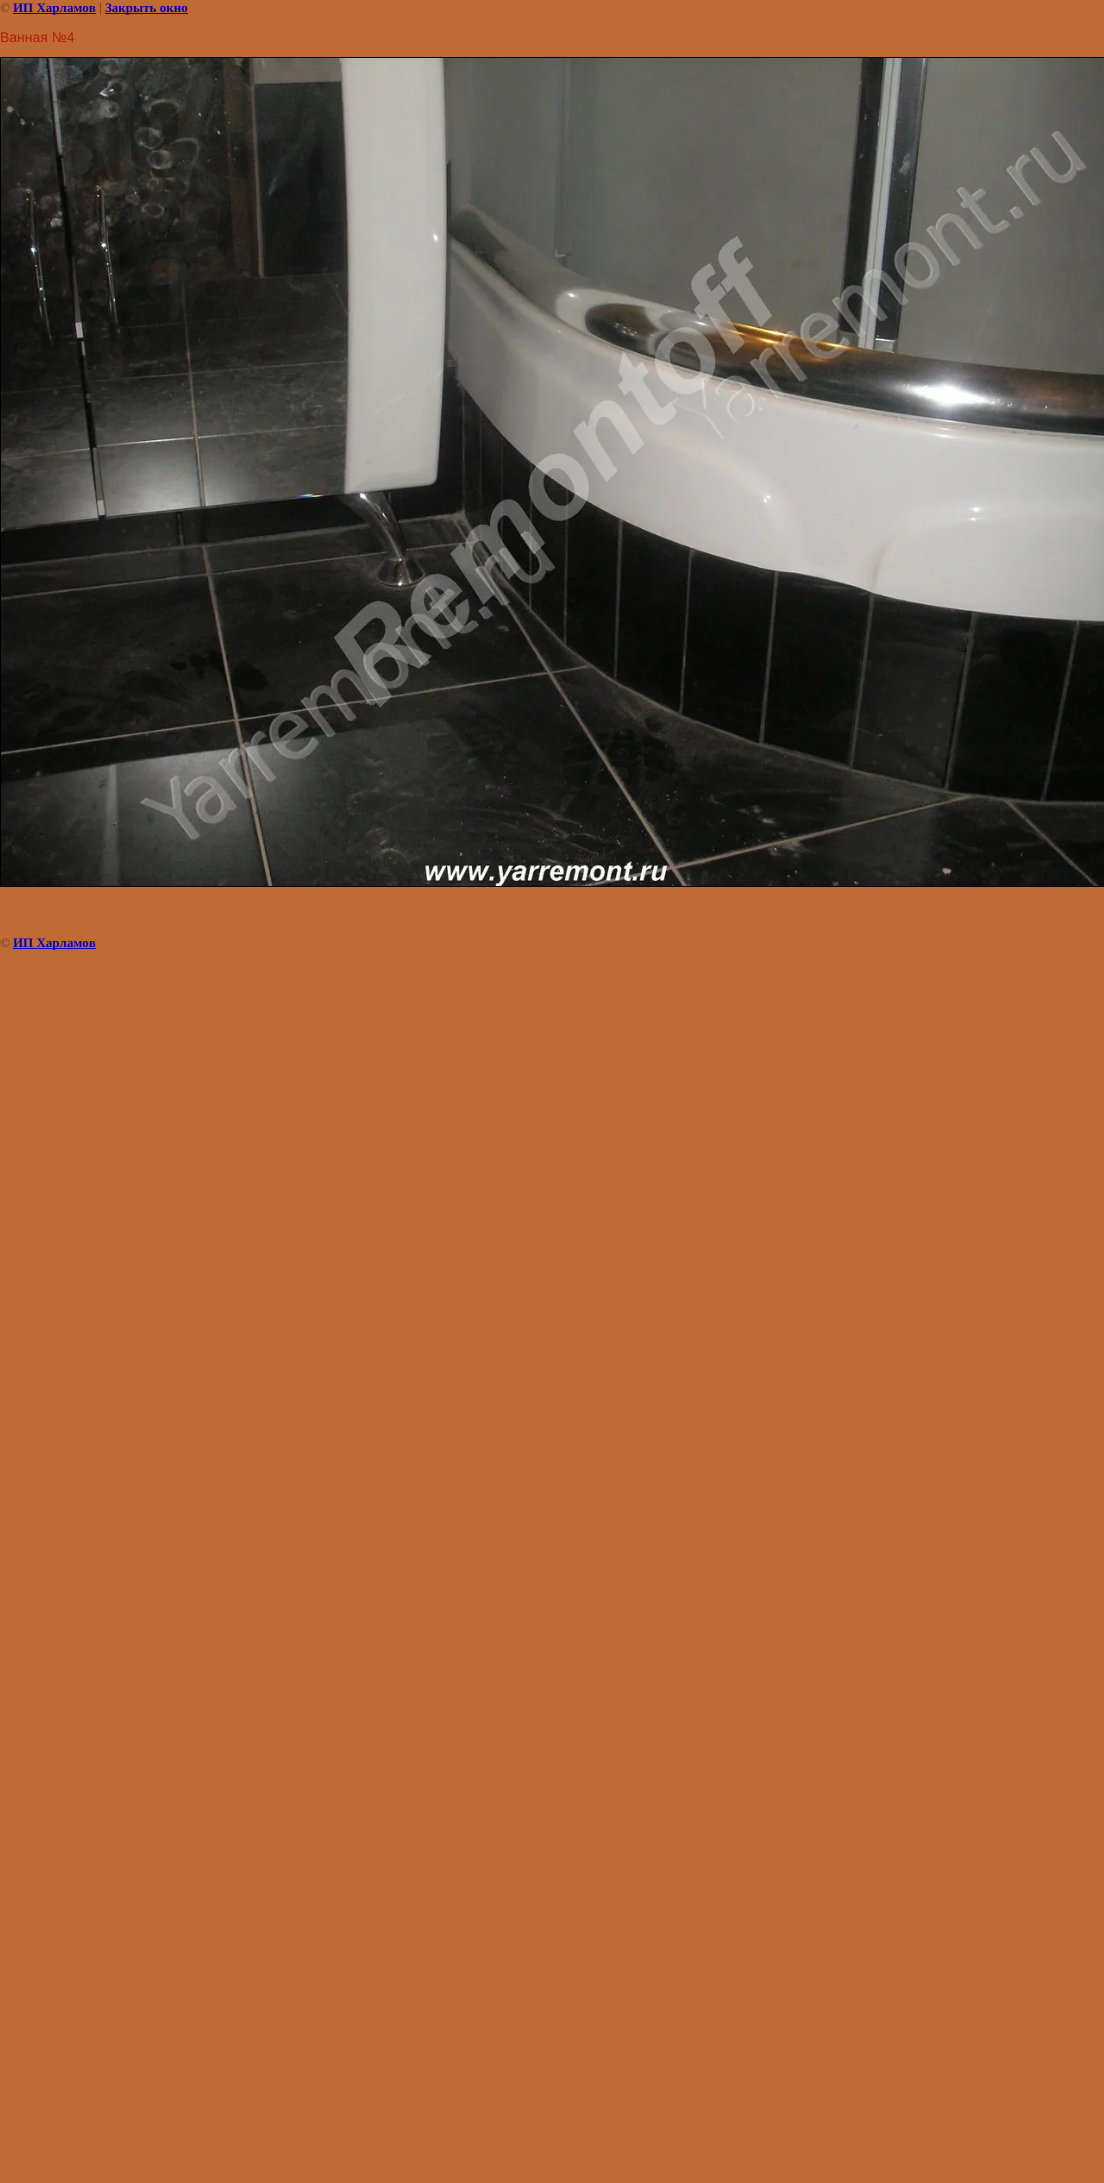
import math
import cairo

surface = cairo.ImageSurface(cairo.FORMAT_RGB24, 1104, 2183)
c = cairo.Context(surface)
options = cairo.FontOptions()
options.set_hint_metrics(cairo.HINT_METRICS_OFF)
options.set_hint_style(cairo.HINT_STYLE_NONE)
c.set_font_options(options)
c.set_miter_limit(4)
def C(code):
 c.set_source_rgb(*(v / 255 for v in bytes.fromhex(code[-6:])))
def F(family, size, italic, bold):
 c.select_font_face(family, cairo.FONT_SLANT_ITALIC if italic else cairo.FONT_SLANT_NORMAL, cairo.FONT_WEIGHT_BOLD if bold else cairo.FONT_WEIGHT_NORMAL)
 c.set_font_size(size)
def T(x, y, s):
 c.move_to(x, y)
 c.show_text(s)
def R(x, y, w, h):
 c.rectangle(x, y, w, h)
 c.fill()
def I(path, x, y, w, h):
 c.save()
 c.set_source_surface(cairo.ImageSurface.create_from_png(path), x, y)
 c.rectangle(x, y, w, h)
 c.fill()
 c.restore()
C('bf6b33')
c.paint()
F('Liberation Serif',13,0,0)
C('5a372c')
T(0,12,'©')
C('0000cc')
R(13,13,83,1)
F('Liberation Serif',13,0,1)
T(13,12,'ИП Харламов')
F('Liberation Serif',13,0,0)
C('5a372c')
T(99,12,'|')
C('0000cc')
R(105,13,83,1)
F('Liberation Serif',13,0,1)
T(105,12,'Закрыть окно')
F('Liberation Sans',14,0,0)
C('b41b0a')
T(0,42,'Ванная №4')
c.rectangle(.5,57.5,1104,829)
C('000000')
c.set_line_width(1)
c.stroke()
I('1.png',1,58,1103,828)
F('Liberation Serif',13,0,0)
C('5a372c')
T(0,947,'©')
C('0000cc')
R(13,948,83,1)
F('Liberation Serif',13,0,1)
T(13,947,'ИП Харламов')
surface.write_to_png('o.png')
